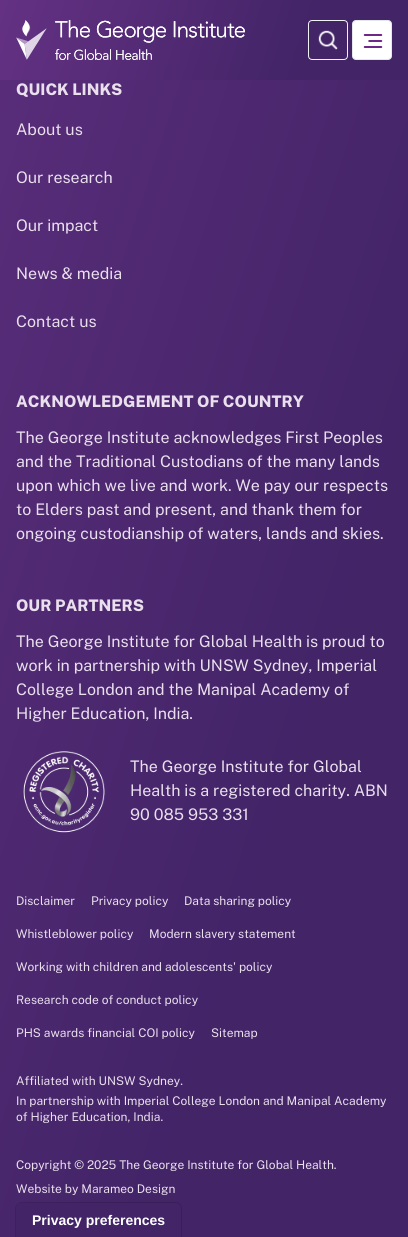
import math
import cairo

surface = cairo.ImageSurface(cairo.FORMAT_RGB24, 408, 1237)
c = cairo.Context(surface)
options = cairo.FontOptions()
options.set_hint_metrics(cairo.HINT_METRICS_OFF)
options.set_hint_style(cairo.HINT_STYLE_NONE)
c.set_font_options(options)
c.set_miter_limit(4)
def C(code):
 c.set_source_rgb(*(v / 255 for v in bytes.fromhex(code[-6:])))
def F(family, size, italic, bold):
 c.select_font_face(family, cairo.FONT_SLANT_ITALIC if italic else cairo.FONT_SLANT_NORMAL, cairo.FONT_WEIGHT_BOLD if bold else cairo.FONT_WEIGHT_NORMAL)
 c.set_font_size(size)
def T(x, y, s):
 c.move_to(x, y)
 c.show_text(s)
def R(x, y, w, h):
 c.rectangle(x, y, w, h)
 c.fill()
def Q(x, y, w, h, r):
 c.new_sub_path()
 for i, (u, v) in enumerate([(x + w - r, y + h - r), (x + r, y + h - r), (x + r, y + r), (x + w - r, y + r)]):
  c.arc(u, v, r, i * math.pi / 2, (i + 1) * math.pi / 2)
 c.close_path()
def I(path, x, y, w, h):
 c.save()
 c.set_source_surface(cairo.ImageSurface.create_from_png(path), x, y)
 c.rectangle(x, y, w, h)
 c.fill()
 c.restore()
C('ffffff')
c.paint()
gradient = cairo.LinearGradient(7.7,-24,400,104)
gradient.add_color_stop_rgba(.01,0.392,0.192,0.514,1)
gradient.add_color_stop_rgba(.75,0.259,0.141,0.404,1)
c.set_source(gradient)
R(0,0,408,80)
I('1.png',16,20,229,40)
Q(308.5,20.5,39,39,3.5)
C('f1f2f2')
c.set_line_width(1)
c.stroke()
I('2.png',318,30,20,20)
C('ffffff')
Q(352.5,20.5,39,39,3.5)
c.fill_preserve()
C('e5e7eb')
c.stroke()
I('3.png',363,34,20,14)
gradient = cairo.LinearGradient(-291,69,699,390)
gradient.add_color_stop_rgba(.01,0.392,0.192,0.514,1)
gradient.add_color_stop_rgba(.75,0.259,0.141,0.404,1)
c.set_source(gradient)
R(0,80,408,1157)
F('Public Sans Thin',16,0,0)
C('e9dfed')
T(16,95,'QUICK LINKS')
F('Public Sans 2 Thin',16,0,0)
T(16,135,'About us')
T(16,183,'Our research')
T(16,231,'Our impact')
T(16,279,'News & media')
T(16,327,'Contact us')
F('Public Sans Thin',16,0,0)
T(16,407,'ACKNOWLEDGEMENT OF COUNTRY')
F('Public Sans 2 Thin',16,0,0)
T(16,443,'The George Institute acknowledges First Peoples')
T(16,467,'and the Traditional Custodians of the many lands')
T(16,491,'upon which we live and work. We pay our respects')
T(16,515,'to Elders past and present, and thank them for')
T(16,539,'ongoing custodianship of waters, lands and skies.')
F('Public Sans Thin',16,0,0)
T(16,611,'OUR PARTNERS')
F('Public Sans 2 Thin',16,0,0)
T(16,647,'The George Institute for Global Health is proud to')
T(16,671,'work in partnership with UNSW Sydney, Imperial')
T(16,695,'College London and the Manipal Academy of')
T(16,719,'Higher Education, India.')
I('4.png',23,751,82,82)
T(130,772,'The George Institute for Global')
T(130,796,'Health is a registered charity. ABN')
T(130,820,'90 085 953 331')
F('Public Sans 2 Thin',12,0,0)
T(16,905,'Disclaimer')
T(91,905,'Privacy policy')
T(184,905,'Data sharing policy')
T(16,938,'Whistleblower policy')
T(149,938,'Modern slavery statement')
T(16,971,'Working with children and adolescents\' policy')
T(16,1004,'Research code of conduct policy')
T(16,1037,'PHS awards financial COI policy')
T(211,1037,'Sitemap')
T(16,1085,'Affiliated with UNSW Sydney.')
T(16,1105,'In partnership with Imperial College London and Manipal Academy')
T(16,1121,'of Higher Education, India.')
T(16,1169,'Copyright © 2025 The George Institute for Global Health.')
T(16,1193,'Website by Marameo Design')
c.new_path()
c.move_to(22,1202.5)
c.line_to(175,1202.5)
c.curve_to(178.5,1202.5,181.5,1205.5,181.5,1209)
c.line_to(181.5,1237.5)
c.line_to(15.5,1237.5)
c.line_to(15.5,1209)
c.curve_to(15.5,1205.5,18.5,1202.5,22,1202.5)
c.close_path()
c.set_source_rgba(0,0,0,0.15)
c.stroke()
C('422467')
c.new_path()
c.move_to(22,1203)
c.line_to(175,1203)
c.curve_to(178.5,1203,181,1205.5,181,1209)
c.line_to(181,1237)
c.line_to(16,1237)
c.line_to(16,1209)
c.curve_to(16,1205.5,18.5,1203,22,1203)
c.close_path()
c.fill()
F('Liberation Sans',14,0,1)
C('ffffff')
T(32,1225,'Privacy preferences')
surface.write_to_png('o.png')
